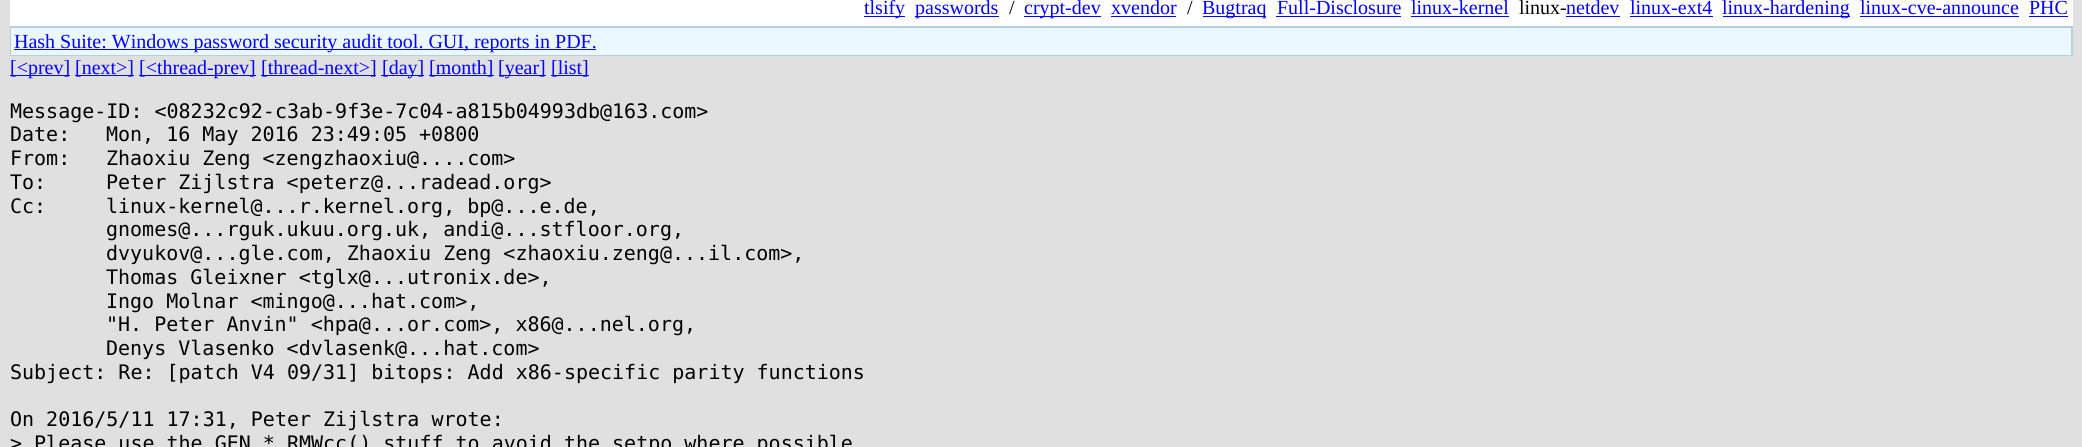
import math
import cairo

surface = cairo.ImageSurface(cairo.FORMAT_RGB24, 2082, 447)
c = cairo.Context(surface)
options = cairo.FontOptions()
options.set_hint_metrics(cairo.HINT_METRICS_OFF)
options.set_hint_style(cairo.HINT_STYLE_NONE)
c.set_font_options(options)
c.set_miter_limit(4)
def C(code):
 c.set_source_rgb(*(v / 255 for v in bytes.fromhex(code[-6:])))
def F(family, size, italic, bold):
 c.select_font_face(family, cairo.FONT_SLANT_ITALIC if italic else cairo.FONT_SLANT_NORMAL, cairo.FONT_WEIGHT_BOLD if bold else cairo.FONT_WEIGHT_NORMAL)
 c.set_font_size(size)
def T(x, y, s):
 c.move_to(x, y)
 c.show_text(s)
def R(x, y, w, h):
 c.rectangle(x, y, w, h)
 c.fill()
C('e0e0e0')
c.paint()
C('ffffff')
R(10,0,2063,26)
C('0000ff')
R(864,16,41,1)
F('Liberation Serif',20,0,0)
T(864,14,'tlsify')
R(915,16,84,1)
T(915,14,'passwords')
C('000000')
T(1009,14,'/')
C('0000ff')
R(1024,16,77,1)
T(1024,14,'crypt-dev')
T(1111,14,'xvendor')
R(1111,16,65,1)
C('000000')
T(1187,14,'/')
C('0000ff')
R(1203,16,63,1)
T(1202,14,'Bugtraq')
T(1277,14,'Full-Disclosure')
R(1276,16,125,1)
T(1411,14,'linux-kernel')
R(1411,16,98,1)
C('000000')
T(1519,14,'linux-')
C('0000ff')
T(1566,14,'netdev')
R(1566,16,54,1)
T(1630,14,'linux-ext4')
R(1630,16,83,1)
R(1723,16,127,1)
T(1722,14,'linux-hardening')
T(1860,14,'linux-cve-announce')
R(1860,16,159,1)
T(2029,14,'PHC')
R(2029,16,39,1)
C('b4d0dc')
R(10,26,2063,30)
C('ecf8ff')
R(11,28,2060,27)
C('0000ff')
R(14,49,582,1)
T(14,48,'Hash Suite: Windows password security audit tool. GUI, reports in PDF.')
R(10,75,60,1)
T(10,74,'[<prev]')
R(75,75,59,1)
T(75,74,'[next>]')
R(139,75,117,1)
T(139,74,'[<thread-prev]')
R(261,75,115,1)
T(261,74,'[thread-next>]')
R(381,75,43,1)
T(382,74,'[day]')
R(429,75,65,1)
T(429,74,'[month]')
R(499,75,47,1)
T(498,74,'[year]')
R(551,75,38,1)
T(551,74,'[list]')
F('DejaVu Sans Mono',20,0,0)
C('000000')
T(10,118,'Message-ID: <08232c92-c3ab-9f3e-7c04-a815b04993db@163.com>')
T(10,141,'Date:')
T(106,141,'Mon, 16 May 2016 23:49:05 +0800')
T(10,165,'From:')
T(106,165,'Zhaoxiu Zeng <zengzhaoxiu@....com>')
T(10,189,'To:')
T(106,189,'Peter Zijlstra <peterz@...radead.org>')
T(10,213,'Cc:')
T(106,213,'linux-kernel@...r.kernel.org, bp@...e.de,')
T(106,236,'gnomes@...rguk.ukuu.org.uk, andi@...stfloor.org,')
T(106,260,'dvyukov@...gle.com, Zhaoxiu Zeng <zhaoxiu.zeng@...il.com>,')
T(106,284,'Thomas Gleixner <tglx@...utronix.de>,')
T(106,308,'Ingo Molnar <mingo@...hat.com>,')
T(106,331,'"H. Peter Anvin" <hpa@...or.com>, x86@...nel.org,')
T(106,355,'Denys Vlasenko <dvlasenk@...hat.com>')
T(10,379,'Subject: Re: [patch V4 09/31] bitops: Add x86-specific parity functions')
T(10,426,'On 2016/5/11 17:31, Peter Zijlstra wrote:')
T(10,450,'> Please use the GEN_*_RMWcc() stuff to avoid the setpo where possible')
surface.write_to_png('o.png')
